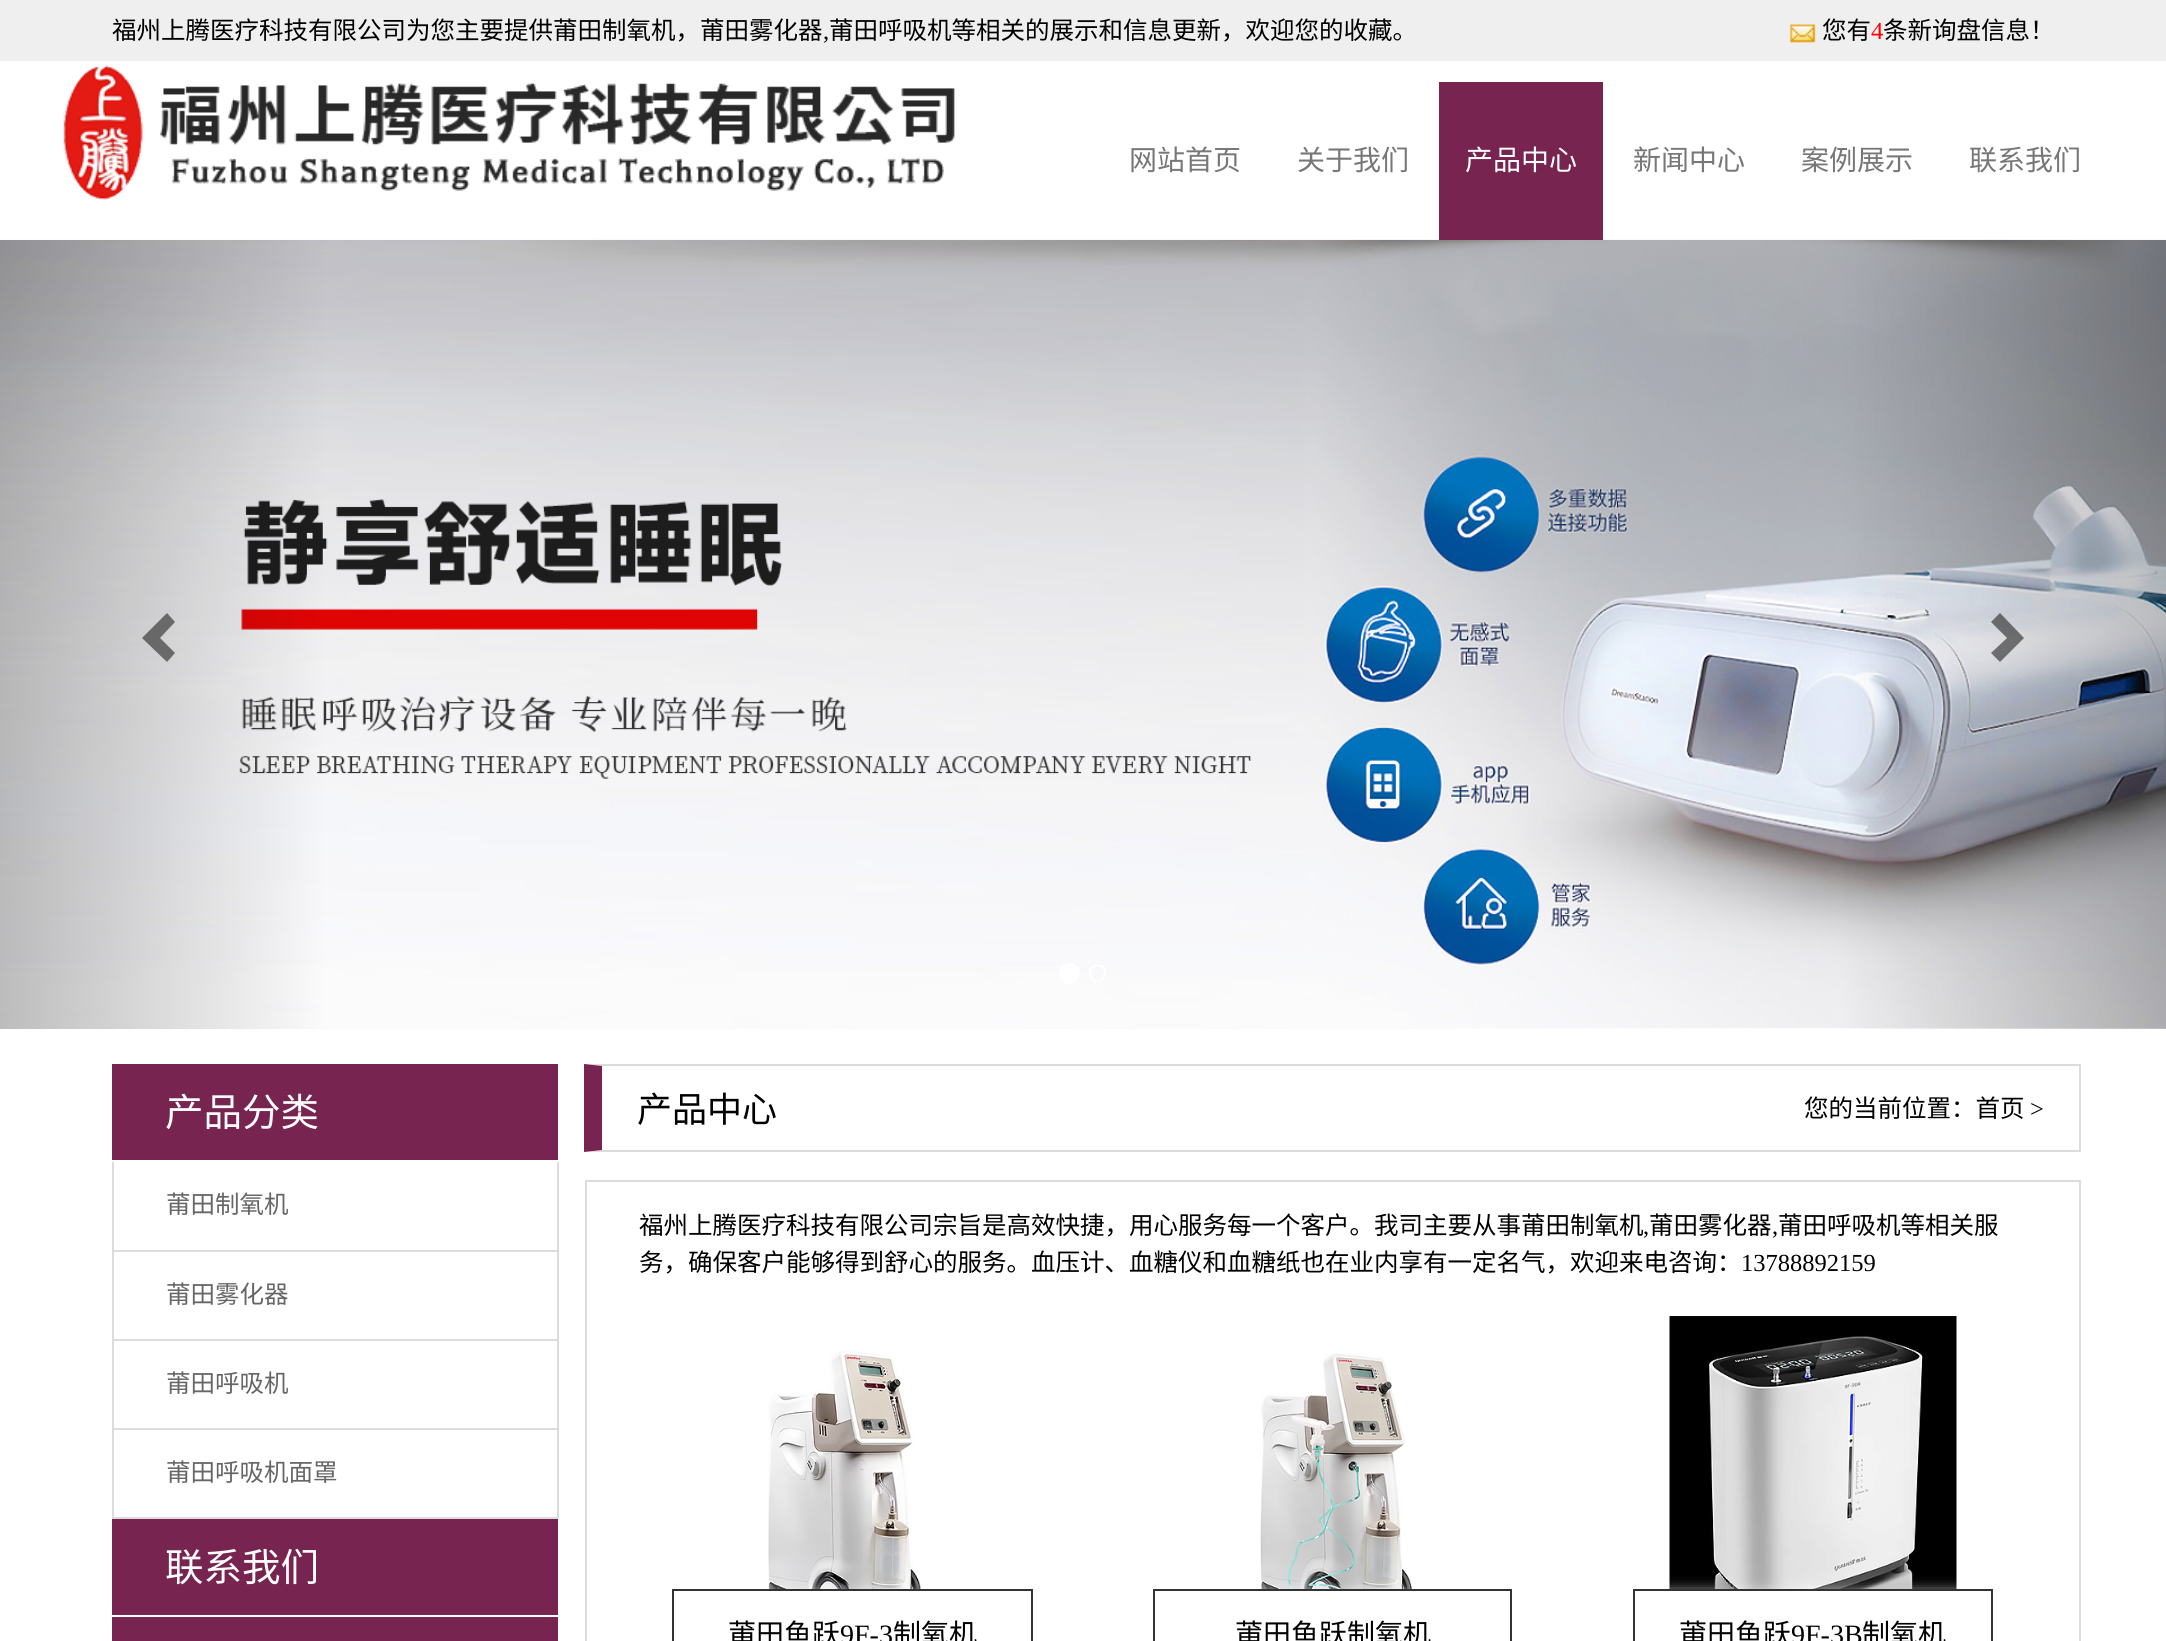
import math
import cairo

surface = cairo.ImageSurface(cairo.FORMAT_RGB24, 2166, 1641)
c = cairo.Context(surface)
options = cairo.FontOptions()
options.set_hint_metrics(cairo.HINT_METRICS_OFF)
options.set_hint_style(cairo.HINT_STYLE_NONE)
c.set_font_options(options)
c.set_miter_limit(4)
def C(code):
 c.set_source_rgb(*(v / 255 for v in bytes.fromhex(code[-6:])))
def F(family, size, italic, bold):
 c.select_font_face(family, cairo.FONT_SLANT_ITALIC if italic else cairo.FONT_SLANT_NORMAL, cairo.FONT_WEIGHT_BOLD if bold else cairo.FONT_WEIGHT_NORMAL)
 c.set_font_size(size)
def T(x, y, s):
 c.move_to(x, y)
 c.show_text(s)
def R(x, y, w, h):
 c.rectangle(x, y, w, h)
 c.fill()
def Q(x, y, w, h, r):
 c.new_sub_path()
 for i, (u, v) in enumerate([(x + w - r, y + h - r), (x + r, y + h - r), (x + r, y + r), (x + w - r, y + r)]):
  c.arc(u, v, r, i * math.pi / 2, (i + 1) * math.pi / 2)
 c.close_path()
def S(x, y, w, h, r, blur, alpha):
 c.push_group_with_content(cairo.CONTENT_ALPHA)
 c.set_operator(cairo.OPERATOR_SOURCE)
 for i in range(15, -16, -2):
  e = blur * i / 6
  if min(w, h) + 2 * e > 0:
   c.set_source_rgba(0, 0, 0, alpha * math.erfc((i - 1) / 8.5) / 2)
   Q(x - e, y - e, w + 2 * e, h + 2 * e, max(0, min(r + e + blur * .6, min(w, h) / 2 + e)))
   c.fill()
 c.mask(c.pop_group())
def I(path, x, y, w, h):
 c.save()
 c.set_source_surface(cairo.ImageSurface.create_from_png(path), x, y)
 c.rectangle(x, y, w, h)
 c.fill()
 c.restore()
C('ffffff')
c.paint()
C('efefef')
R(0,0,2166,61)
F('Noto Sans CJK SC',24.5,0,0)
C('000000')
T(112,39,'福州上腾医疗科技有限公司为您主要提供莆田制氧机，莆田雾化器')
F('Liberation Serif',24.5,0,0)
T(823,39,',')
F('Noto Sans CJK SC',24.5,0,0)
T(829,39,'莆田呼吸机等相关的展示和信息更新，欢迎您的收藏。')
I('1.png',1789,24,27,19)
T(1822,39,'您有')
F('Liberation Serif',24.5,0,0)
C('ff0000')
T(1871,39,'4')
F('Noto Sans CJK SC',24.5,0,0)
C('000000')
T(1883,39,'条新询盘信息！')
I('2.png',63,65,892,135)
F('Noto Sans CJK SC',28,0,0)
C('777777')
T(1129,170,'网站首页')
T(1297,170,'关于我们')
I('3.png',0,239,2166,790)
C('772450')
R(1439,82,164,158)
C('ffffff')
T(1465,170,'产品中心')
C('777777')
T(1633,170,'新闻中心')
T(1801,170,'案例展示')
T(1969,170,'联系我们')
c.set_source_rgba(0,0,0,0.5)
c.new_path()
c.move_to(175,622)
c.line_to(160,638)
c.line_to(175,653)
c.line_to(167,662)
c.line_to(142,638)
c.line_to(167,613)
c.close_path()
c.fill()
c.new_path()
c.move_to(2024,638)
c.line_to(2000,662)
c.line_to(1991,653)
c.line_to(2007,638)
c.line_to(1991,622)
c.line_to(2000,613)
c.close_path()
c.fill()
C('ffffff')
c.arc(1069.5,973.5,10.5,0,2 * math.pi)
c.fill()
Q(1090,965,15,16,7.5)
c.stroke()
C('772450')
R(112,1064,446,96)
F('Noto Sans CJK SC',38.5,0,0)
C('ffffff')
T(165,1126,'产品分类')
C('dcdcdc')
R(557,1162,2,357)
R(112,1162,2,357)
C('dddddd')
R(114,1250,443,2)
F('Noto Sans CJK SC',24.5,0,0)
C('666666')
T(166,1213,'莆田制氧机')
C('dddddd')
R(114,1339,443,2)
C('666666')
T(166,1303,'莆田雾化器')
C('dddddd')
R(114,1428,443,2)
C('666666')
T(166,1392,'莆田呼吸机')
C('dddddd')
R(114,1517,443,2)
C('666666')
T(166,1481,'莆田呼吸机面罩')
C('772450')
R(112,1519,446,96)
F('Noto Sans CJK SC',38.5,0,0)
C('ffffff')
T(165,1581,'联系我们')
C('772450')
R(112,1617,446,24)
C('dcdcdc')
c.new_path()
c.move_to(584,1064)
c.line_to(2081,1064)
c.line_to(2079,1066)
c.line_to(602,1066)
c.close_path()
c.fill()
R(2079,1064,2,88)
c.new_path()
c.move_to(2081,1152)
c.line_to(584,1152)
c.line_to(602,1150)
c.line_to(2079,1150)
c.close_path()
c.fill()
C('772450')
c.new_path()
c.move_to(584,1152)
c.line_to(584,1064)
c.line_to(602,1066)
c.line_to(602,1150)
c.close_path()
c.fill()
F('Noto Sans CJK SC',35,0,0)
C('000000')
T(637,1122,'产品中心')
F('Noto Sans CJK SC',24.5,0,0)
T(1804,1117,'您的当前位置：首页')
F('Liberation Serif',24.5,0,0)
T(2030,1117,'>')
c.rectangle(586,1181,1494,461)
C('dcdcdc')
c.stroke()
F('Noto Sans CJK SC',24.5,0,0)
C('000000')
T(639,1234,'福州上腾医疗科技有限公司宗旨是高效快捷，用心服务每一个客户。我司主要从事莆田制氧机')
F('Liberation Serif',24.5,0,0)
T(1643,1234,',')
F('Noto Sans CJK SC',24.5,0,0)
T(1649,1234,'莆田雾化器')
F('Liberation Serif',24.5,0,0)
T(1772,1234,',')
F('Noto Sans CJK SC',24.5,0,0)
T(1778,1234,'莆田呼吸机等相关服')
T(639,1271,'务，确保客户能够得到舒心的服务。血压计、血糖仪和血糖纸也在业内享有一定名气，欢迎来电咨询：')
F('Liberation Serif',24.5,0,0)
T(1741,1271,'13788892159')
I('4.png',767,1350,155,239)
C('ffffff')
S(672,1593,361,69,0,7,1)
c.rectangle(673,1590,359,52)
C('333333')
c.stroke()
F('Noto Sans CJK SC',28,0,0)
C('000000')
T(728,1644,'莆田鱼跃')
F('Liberation Serif',28,0,0)
T(840,1644,'9F-3')
F('Noto Sans CJK SC',28,0,0)
T(893,1644,'制氧机')
I('5.png',1260,1353,153,236)
C('ffffff')
S(1153,1593,359,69,0,7,1)
c.rectangle(1154,1590,357,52)
C('333333')
c.stroke()
C('000000')
T(1235,1644,'莆田鱼跃制氧机')
I('6.png',1669,1316,288,273)
C('ffffff')
S(1633,1593,360,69,0,7,1)
c.rectangle(1634,1590,358,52)
C('333333')
c.stroke()
C('000000')
T(1679,1644,'莆田鱼跃')
F('Liberation Serif',28,0,0)
T(1791,1644,'9F-3B')
F('Noto Sans CJK SC',28,0,0)
T(1862,1644,'制氧机')
surface.write_to_png('o.png')
